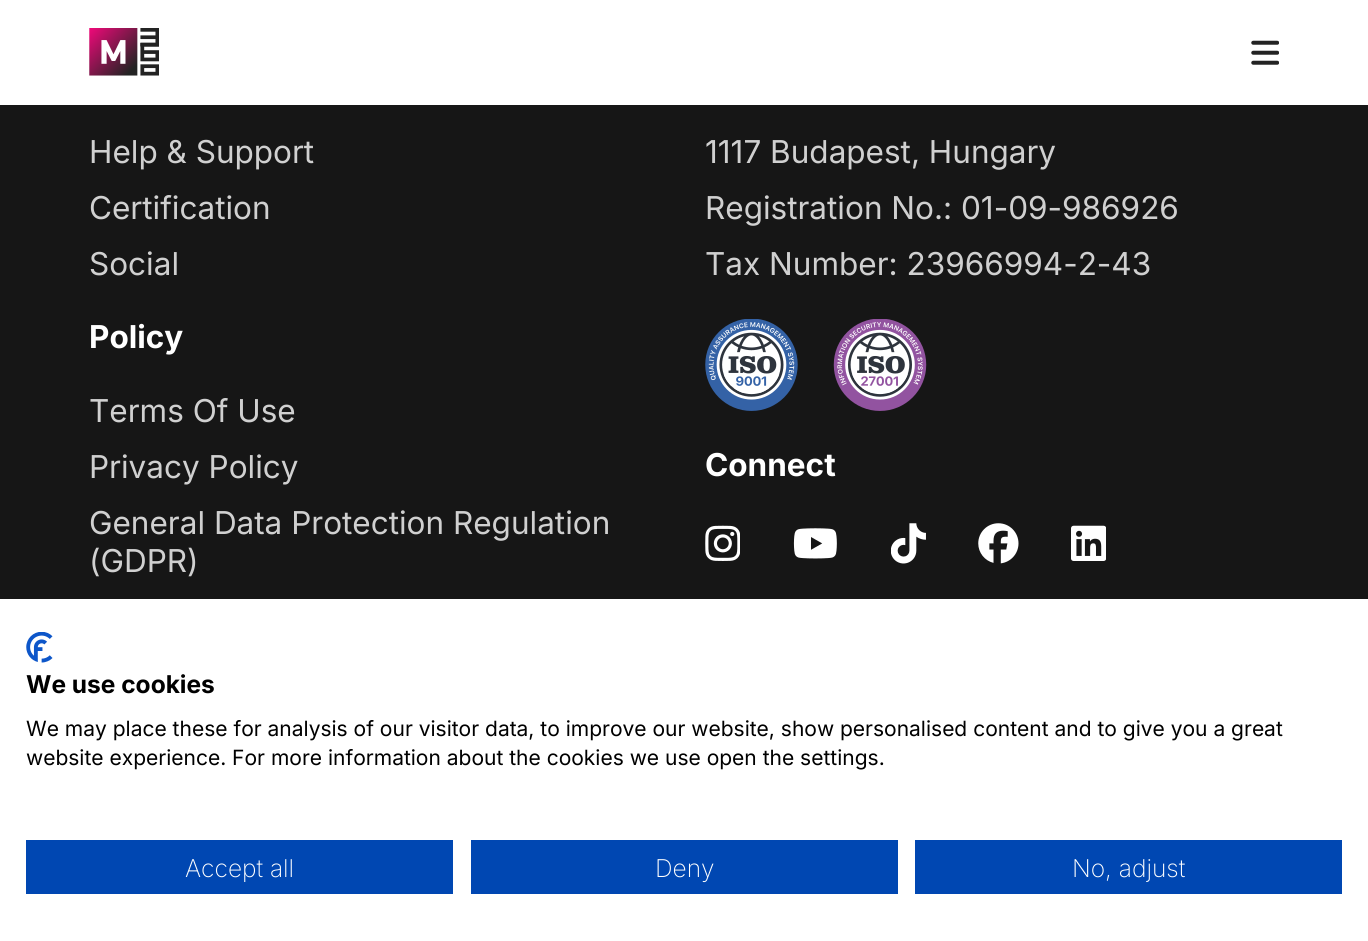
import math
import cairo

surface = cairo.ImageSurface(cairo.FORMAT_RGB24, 1368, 941)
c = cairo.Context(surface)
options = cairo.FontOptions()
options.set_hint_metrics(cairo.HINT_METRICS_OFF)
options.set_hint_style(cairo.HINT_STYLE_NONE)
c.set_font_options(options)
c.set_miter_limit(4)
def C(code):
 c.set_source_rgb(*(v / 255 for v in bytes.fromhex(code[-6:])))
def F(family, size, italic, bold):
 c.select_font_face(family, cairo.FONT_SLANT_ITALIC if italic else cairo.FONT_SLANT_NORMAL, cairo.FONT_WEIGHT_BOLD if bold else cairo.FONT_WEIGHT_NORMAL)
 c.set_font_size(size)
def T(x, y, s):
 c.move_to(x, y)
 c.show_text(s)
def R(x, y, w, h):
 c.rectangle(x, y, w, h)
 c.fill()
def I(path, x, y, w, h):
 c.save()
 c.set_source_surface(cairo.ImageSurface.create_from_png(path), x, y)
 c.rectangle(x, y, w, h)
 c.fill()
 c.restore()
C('161616')
c.paint()
C('ffffff')
R(0,0,1368,105)
I('1.png',89,28,70,48)
I('2.png',1251,40,28,25)
F('Inter',31.5,0,0)
C('d0d0d0')
T(89,163,'Help & Support')
T(89,219,'Certification')
T(89,275,'Social')
F('Inter',31.5,0,1)
C('ffffff')
T(89,348,'Policy')
F('Inter',31.5,0,0)
C('d0d0d0')
T(89,422,'Terms Of Use')
T(89,478,'Privacy Policy')
T(89,534,'General Data Protection Regulation')
T(89,572,'(GDPR)')
T(705,163,'1117 Budapest, Hungary')
T(705,219,'Registration No.: 01-09-986926')
T(705,275,'Tax Number: 23966994-2-43')
I('3.png',705,319,93,92)
I('4.png',833,319,94,92)
F('Inter',31.5,0,1)
C('ffffff')
T(705,476,'Connect')
I('5.png',705,525,35,36)
I('6.png',793,528,44,31)
I('7.png',891,523,35,41)
I('8.png',978,523,41,41)
I('9.png',1071,525,35,36)
R(0,599,1368,342)
I('10.png',26,632,27,31)
F('Inter',24.5,0,1)
C('000000')
T(26,693,'We use cookies')
F('Inter',21,0,0)
T(26,736,'We may place these for analysis of our visitor data, to improve our website, show personalised content and to give you a great')
T(26,765,'website experience. For more information about the cookies we use open the settings.')
C('0047b2')
R(26,840,427,54)
F('Inter ExtraLight',24.5,0,0)
C('ffffff')
T(185,877,'Accept all')
C('0047b2')
R(471,840,427,54)
C('ffffff')
T(655,877,'Deny')
C('0047b2')
R(915,840,427,54)
C('ffffff')
T(1072,877,'No, adjust')
surface.write_to_png('o.png')
